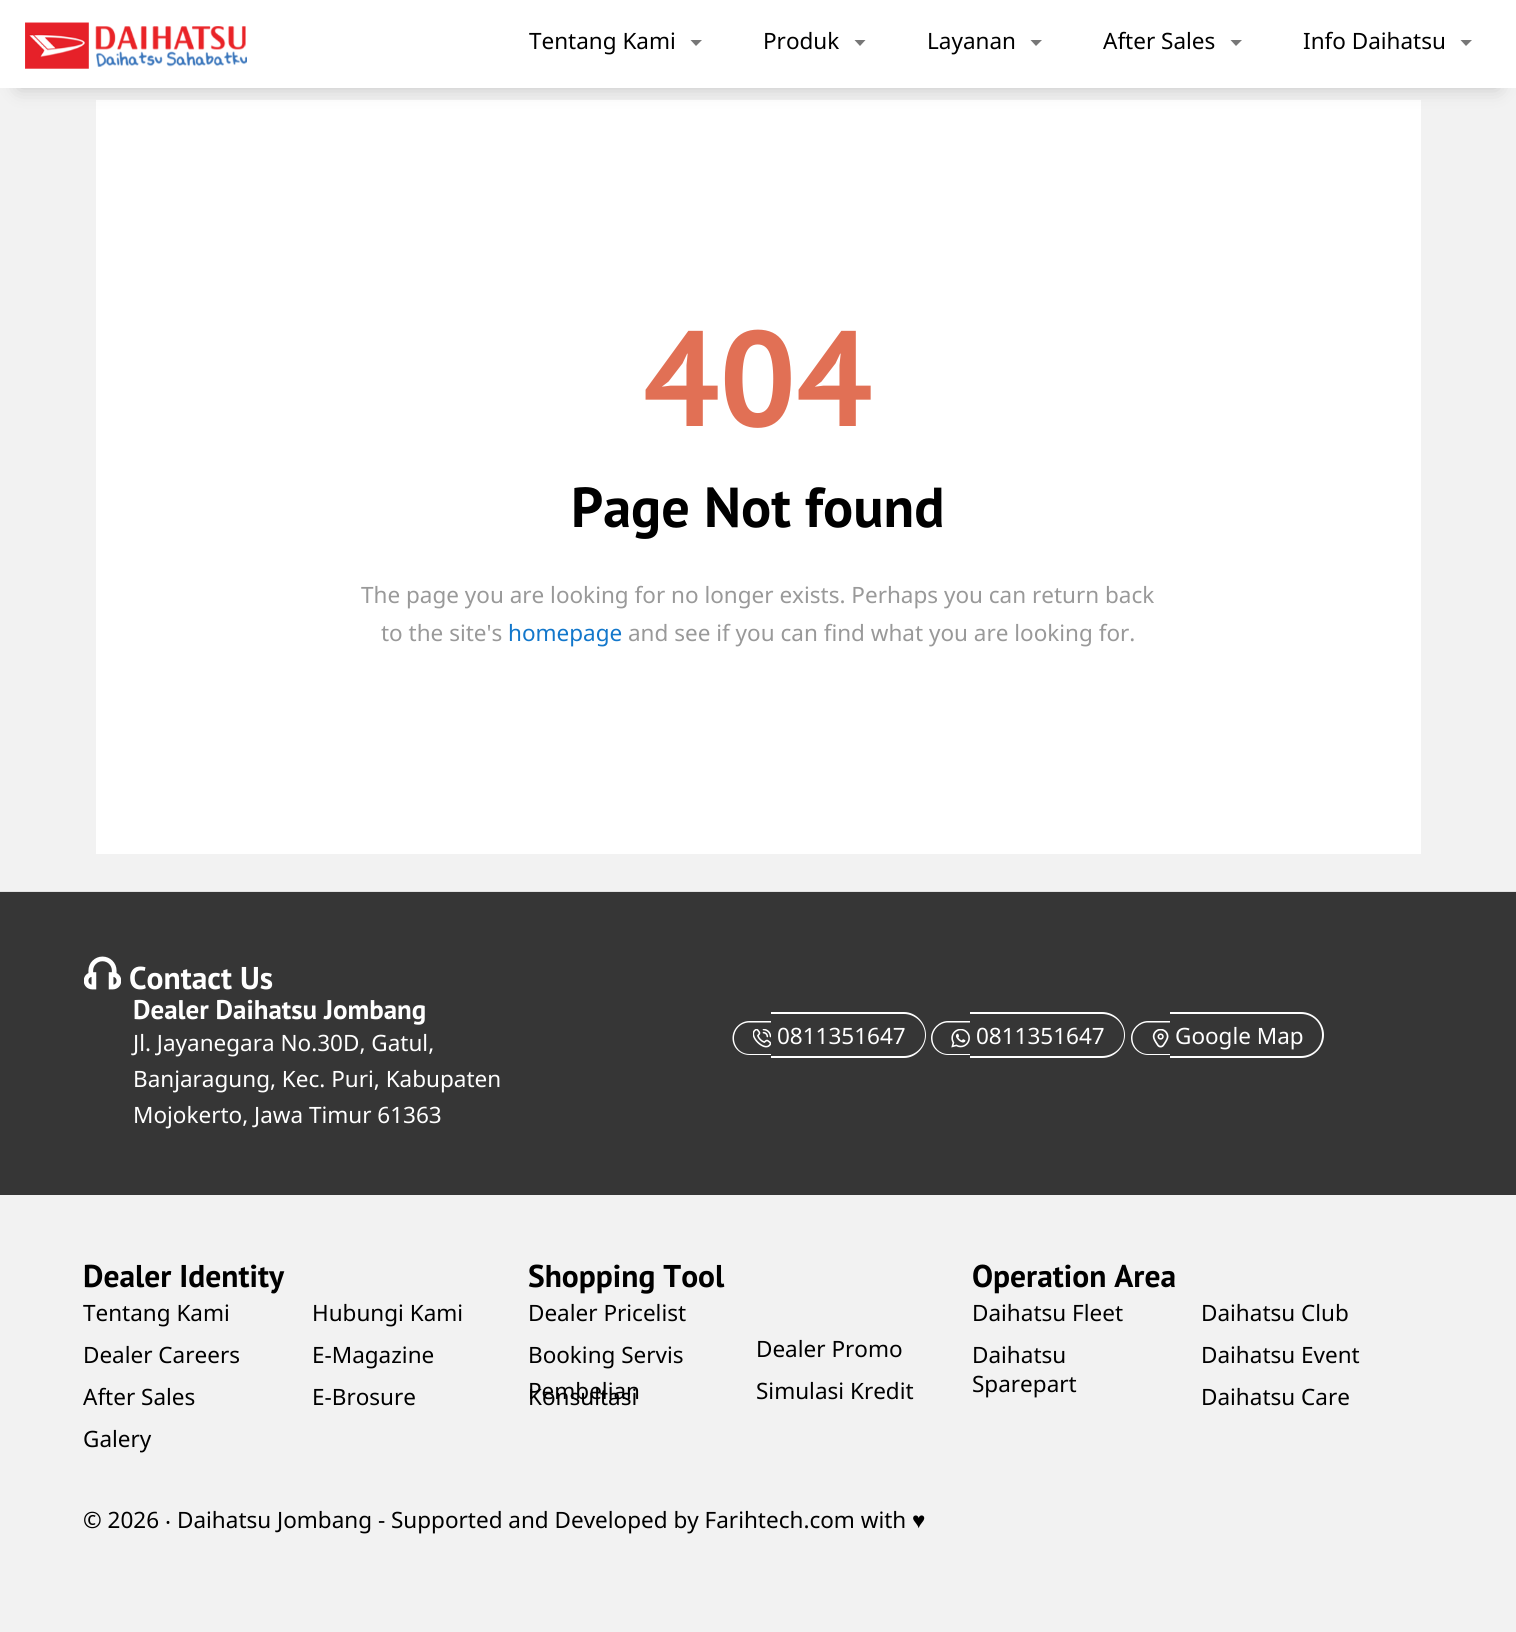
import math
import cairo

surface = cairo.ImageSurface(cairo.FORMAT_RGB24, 1516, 1632)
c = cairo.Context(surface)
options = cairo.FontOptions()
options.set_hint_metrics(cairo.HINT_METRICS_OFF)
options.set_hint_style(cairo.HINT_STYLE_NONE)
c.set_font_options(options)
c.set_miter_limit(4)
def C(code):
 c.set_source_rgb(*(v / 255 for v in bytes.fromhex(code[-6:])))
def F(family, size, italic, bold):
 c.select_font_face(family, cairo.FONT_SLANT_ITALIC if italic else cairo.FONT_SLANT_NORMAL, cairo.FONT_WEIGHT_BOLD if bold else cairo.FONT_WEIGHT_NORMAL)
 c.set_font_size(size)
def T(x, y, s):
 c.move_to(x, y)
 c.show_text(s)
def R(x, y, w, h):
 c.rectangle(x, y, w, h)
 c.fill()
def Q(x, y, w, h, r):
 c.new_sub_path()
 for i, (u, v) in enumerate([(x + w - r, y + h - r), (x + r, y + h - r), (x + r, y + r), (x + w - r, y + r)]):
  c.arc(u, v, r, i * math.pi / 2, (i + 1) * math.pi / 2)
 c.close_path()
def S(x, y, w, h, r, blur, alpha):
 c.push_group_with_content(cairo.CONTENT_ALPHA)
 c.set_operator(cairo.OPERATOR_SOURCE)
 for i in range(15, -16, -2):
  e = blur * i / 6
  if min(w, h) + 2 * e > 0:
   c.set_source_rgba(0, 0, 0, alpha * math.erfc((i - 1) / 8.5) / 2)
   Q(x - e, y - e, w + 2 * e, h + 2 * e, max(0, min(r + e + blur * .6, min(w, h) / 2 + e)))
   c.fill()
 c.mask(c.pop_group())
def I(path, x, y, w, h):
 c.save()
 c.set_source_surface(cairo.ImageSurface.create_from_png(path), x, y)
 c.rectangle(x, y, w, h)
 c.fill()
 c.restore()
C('f2f2f2')
c.paint()
C('ffffff')
R(96,100,1325,754)
C('000000')
S(19,38,1479,50,0,9.5,.2)
C('ffffff')
R(0,0,1516,88)
I('1.png',25,22,222,47)
F('Noto Sans',22.5,0,0)
C('000000')
T(529,49,'Tentang Kami')
C('777777')
c.new_path()
c.move_to(690.5,40)
c.line_to(696,46)
c.line_to(702,40)
c.close_path()
c.fill()
C('000000')
T(763,49,'Produk')
C('777777')
c.new_path()
c.move_to(854.5,40)
c.line_to(860,46)
c.line_to(865.5,40)
c.close_path()
c.fill()
C('000000')
T(927,49,'Layanan')
C('777777')
c.new_path()
c.move_to(1030.5,40)
c.line_to(1036,46)
c.line_to(1042,40)
c.close_path()
c.fill()
C('000000')
T(1103,49,'After Sales')
C('777777')
c.new_path()
c.move_to(1230.5,40)
c.line_to(1236,46)
c.line_to(1242,40)
c.close_path()
c.fill()
C('000000')
T(1303,49,'Info Daihatsu')
C('777777')
c.new_path()
c.move_to(1460.5,40)
c.line_to(1466,46)
c.line_to(1472,40)
c.close_path()
c.fill()
F('PT Sans',135,0,1)
C('e17055')
T(643,426,'404')
F('PT Sans',56.25,0,1)
C('000000')
T(571,527,'Page Not found')
F('Noto Sans',22.5,0,0)
C('999999')
T(361,603,'The page you are looking for no longer exists. Perhaps you can return back')
T(381,641,'to the site\'s')
C('1277cb')
T(508,641,'homepage')
C('999999')
T(628,641,'and see if you can find what you are looking for.')
C('363636')
R(0,892,1516,303)
C('e2e2e2')
R(0,891,1516,1)
I('2.png',84,956,37,34)
F('PT Sans',31.5,0,1)
C('ffffff')
T(129,989,'Contact Us')
F('PT Sans',27,0,1)
T(133,1019,'Dealer Daihatsu Jombang')
F('Noto Sans',22.5,0,0)
T(133,1051,'Jl. Jayanegara No.30D, Gatul,')
T(133,1087,'Banjaragung, Kec. Puri, Kabupaten')
T(133,1123,'Mojokerto, Jawa Timur 61363')
c.set_fill_rule(cairo.FILL_RULE_EVEN_ODD)
c.new_path()
c.move_to(749.5,1021)
c.line_to(771,1021)
c.line_to(771,1055)
c.line_to(749.5,1055)
c.curve_to(740,1055,732.5,1047.5,732.5,1038)
c.curve_to(732.5,1029,740,1021,749.5,1021)
c.close_path()
c.move_to(749.5,1022.5)
c.line_to(771,1022.5)
c.line_to(771,1054)
c.line_to(749.5,1054)
c.curve_to(740.5,1054,734,1047,734,1038)
c.curve_to(734,1029.5,740.5,1022.5,749.5,1022.5)
c.close_path()
c.fill()
I('3.png',753,1029,18,19)
c.new_path()
c.move_to(771,1012)
c.line_to(904,1012)
c.curve_to(916,1012,926,1023,926,1035)
c.curve_to(926,1047,916,1058,904,1058)
c.line_to(771,1058)
c.close_path()
c.move_to(771,1014)
c.line_to(904,1014)
c.curve_to(915,1014,925,1023,925,1035)
c.curve_to(925,1047,915,1056,904,1056)
c.line_to(771,1056)
c.close_path()
c.fill()
T(777,1044,'0811351647')
c.new_path()
c.move_to(948,1021)
c.line_to(970,1021)
c.line_to(970,1055)
c.line_to(948,1055)
c.curve_to(939,1055,931,1047.5,931,1038)
c.curve_to(931,1029,939,1021,948,1021)
c.close_path()
c.move_to(948,1022.5)
c.line_to(970,1022.5)
c.line_to(970,1054)
c.line_to(948,1054)
c.curve_to(939.5,1054,932.5,1047,932.5,1038)
c.curve_to(932.5,1029.5,939.5,1022.5,948,1022.5)
c.close_path()
c.fill()
I('4.png',951,1029,19,19)
c.new_path()
c.move_to(970,1012)
c.line_to(1102,1012)
c.curve_to(1115,1012,1125,1023,1125,1035)
c.curve_to(1125,1047,1115,1058,1102,1058)
c.line_to(970,1058)
c.close_path()
c.move_to(970,1014)
c.line_to(1102,1014)
c.curve_to(1114,1014,1124,1023,1124,1035)
c.curve_to(1124,1047,1114,1056,1102,1056)
c.line_to(970,1056)
c.close_path()
c.fill()
T(976,1044,'0811351647')
c.new_path()
c.move_to(1148,1021)
c.line_to(1170,1021)
c.line_to(1170,1055)
c.line_to(1148,1055)
c.curve_to(1139,1055,1131,1047.5,1131,1038)
c.curve_to(1131,1029,1139,1021,1148,1021)
c.close_path()
c.move_to(1148,1022.5)
c.line_to(1170,1022.5)
c.line_to(1170,1054)
c.line_to(1148,1054)
c.curve_to(1139.5,1054,1132.5,1047,1132.5,1038)
c.curve_to(1132.5,1029.5,1139.5,1022.5,1148,1022.5)
c.close_path()
c.fill()
I('5.png',1152,1029,17,19)
c.new_path()
c.move_to(1170,1012)
c.line_to(1301,1012)
c.curve_to(1314,1012,1324,1023,1324,1035)
c.curve_to(1324,1047,1314,1058,1301,1058)
c.line_to(1170,1058)
c.close_path()
c.move_to(1170,1014)
c.line_to(1301,1014)
c.curve_to(1313,1014,1322,1023,1322,1035)
c.curve_to(1322,1047,1313,1056,1301,1056)
c.line_to(1170,1056)
c.close_path()
c.fill()
T(1175,1044,'Google Map')
F('PT Sans',31.5,0,1)
C('000000')
T(83,1287,'Dealer Identity')
F('Noto Sans',22.5,0,0)
T(83,1321,'Tentang Kami')
T(312,1321,'Hubungi Kami')
T(83,1363,'Dealer Careers')
T(312,1363,'E-Magazine')
T(83,1405,'After Sales')
T(312,1405,'E-Brosure')
T(83,1447,'Galery')
F('PT Sans',31.5,0,1)
T(528,1287,'Shopping Tool')
F('Noto Sans',22.5,0,0)
T(528,1321,'Dealer Pricelist')
T(528,1363,'Booking Servis')
T(756,1357,'Dealer Promo')
T(528,1405,'Konsultasi')
T(528,1399,'Pembelian')
T(756,1399,'Simulasi Kredit')
F('PT Sans',31.5,0,1)
T(972,1287,'Operation Area')
F('Noto Sans',22.5,0,0)
T(972,1321,'Daihatsu Fleet')
T(1201,1321,'Daihatsu Club')
T(972,1363,'Daihatsu')
T(972,1392,'Sparepart')
T(1201,1363,'Daihatsu Event')
T(1201,1405,'Daihatsu Care')
T(83,1528,'© 2026')
F('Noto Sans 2',22.5,0,0)
T(165,1528,'‧')
F('Noto Sans',22.5,0,0)
T(177,1528,'Daihatsu Jombang - Supported and Developed by Farihtech.com with')
F('Liberation Serif',22.5,0,0)
T(912,1528,'♥')
surface.write_to_png('o.png')
